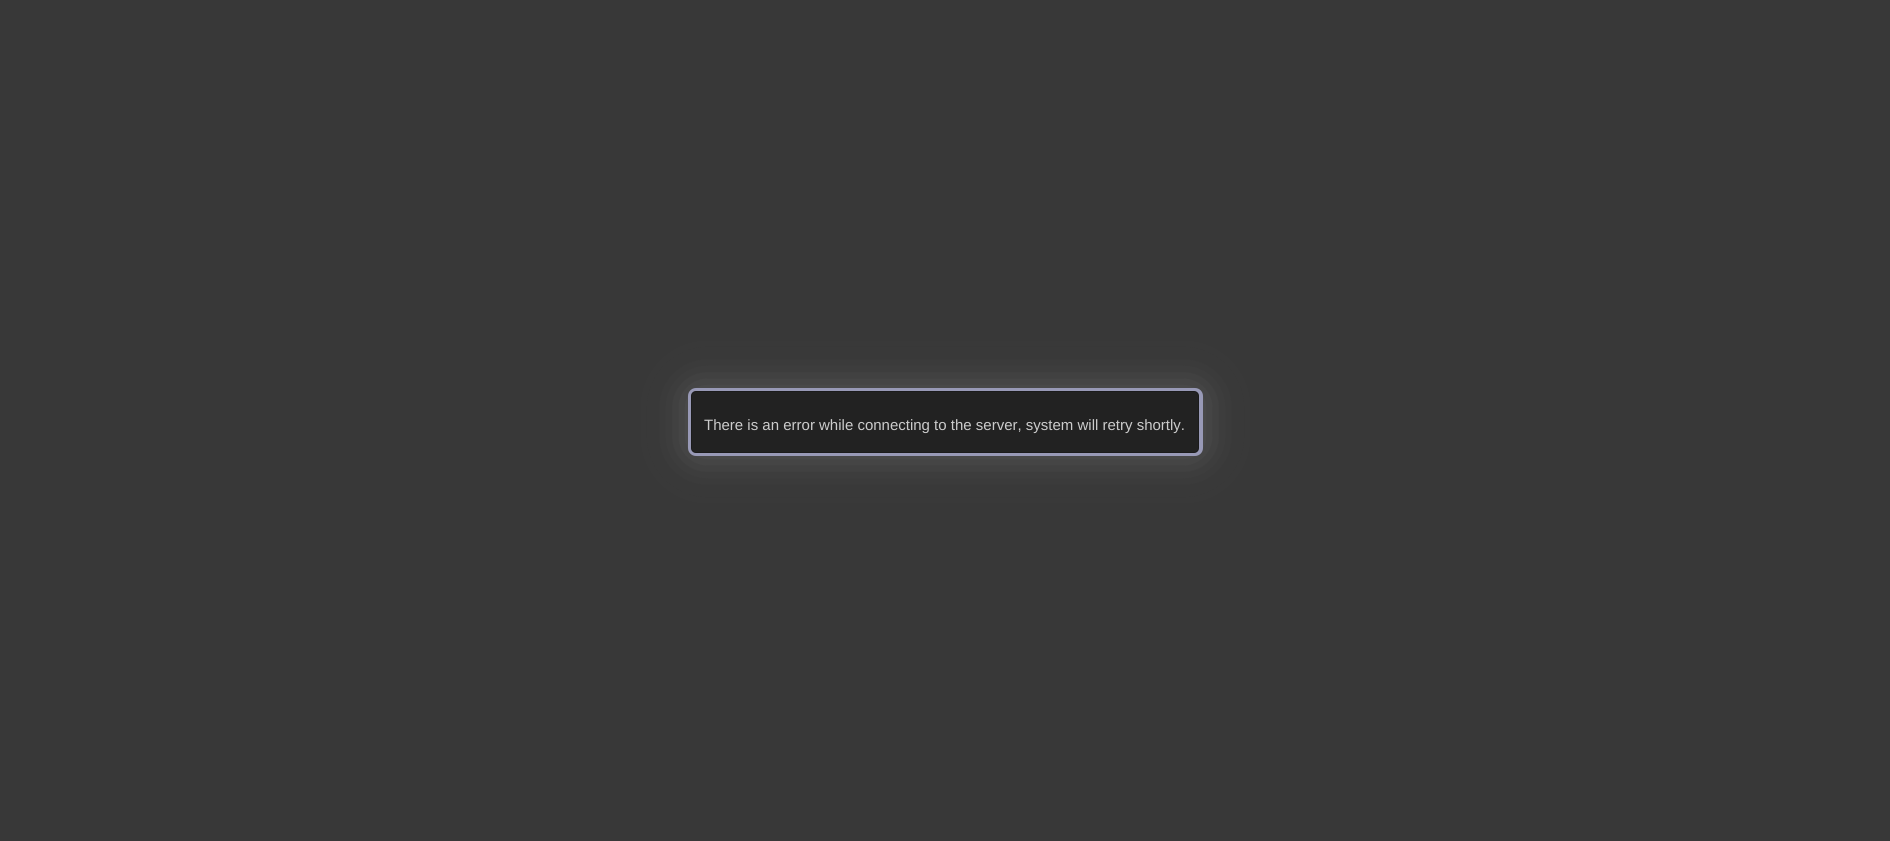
import math
import cairo

surface = cairo.ImageSurface(cairo.FORMAT_RGB24, 1890, 841)
c = cairo.Context(surface)
options = cairo.FontOptions()
options.set_hint_metrics(cairo.HINT_METRICS_OFF)
options.set_hint_style(cairo.HINT_STYLE_NONE)
c.set_font_options(options)
c.set_miter_limit(4)
def C(code):
 c.set_source_rgb(*(v / 255 for v in bytes.fromhex(code[-6:])))
def F(family, size, italic, bold):
 c.select_font_face(family, cairo.FONT_SLANT_ITALIC if italic else cairo.FONT_SLANT_NORMAL, cairo.FONT_WEIGHT_BOLD if bold else cairo.FONT_WEIGHT_NORMAL)
 c.set_font_size(size)
def T(x, y, s):
 c.move_to(x, y)
 c.show_text(s)
def Q(x, y, w, h, r):
 c.new_sub_path()
 for i, (u, v) in enumerate([(x + w - r, y + h - r), (x + r, y + h - r), (x + r, y + r), (x + w - r, y + r)]):
  c.arc(u, v, r, i * math.pi / 2, (i + 1) * math.pi / 2)
 c.close_path()
def S(x, y, w, h, r, blur, alpha):
 c.push_group_with_content(cairo.CONTENT_ALPHA)
 c.set_operator(cairo.OPERATOR_SOURCE)
 for i in range(15, -16, -2):
  e = blur * i / 6
  if min(w, h) + 2 * e > 0:
   c.set_source_rgba(0, 0, 0, alpha * math.erfc((i - 1) / 8.5) / 2)
   Q(x - e, y - e, w + 2 * e, h + 2 * e, max(0, min(r + e + blur * .6, min(w, h) / 2 + e)))
   c.fill()
 c.mask(c.pop_group())
C('383838')
c.paint()
C('636363')
S(688,388,515,68,8,19,.79)
C('9899b6')
Q(688,388,515,68,8)
c.fill()
C('222222')
Q(691,391,508,62,5)
c.fill()
Q(691.5,391.5,507,61,4.5)
c.set_source_rgba(0,0,0,0.2)
c.set_line_width(1)
c.stroke()
F('Liberation Sans',15,0,0)
C('cccccc')
T(704,430,'There is an error while connecting to the server, system will retry shortly.')
surface.write_to_png('o.png')
